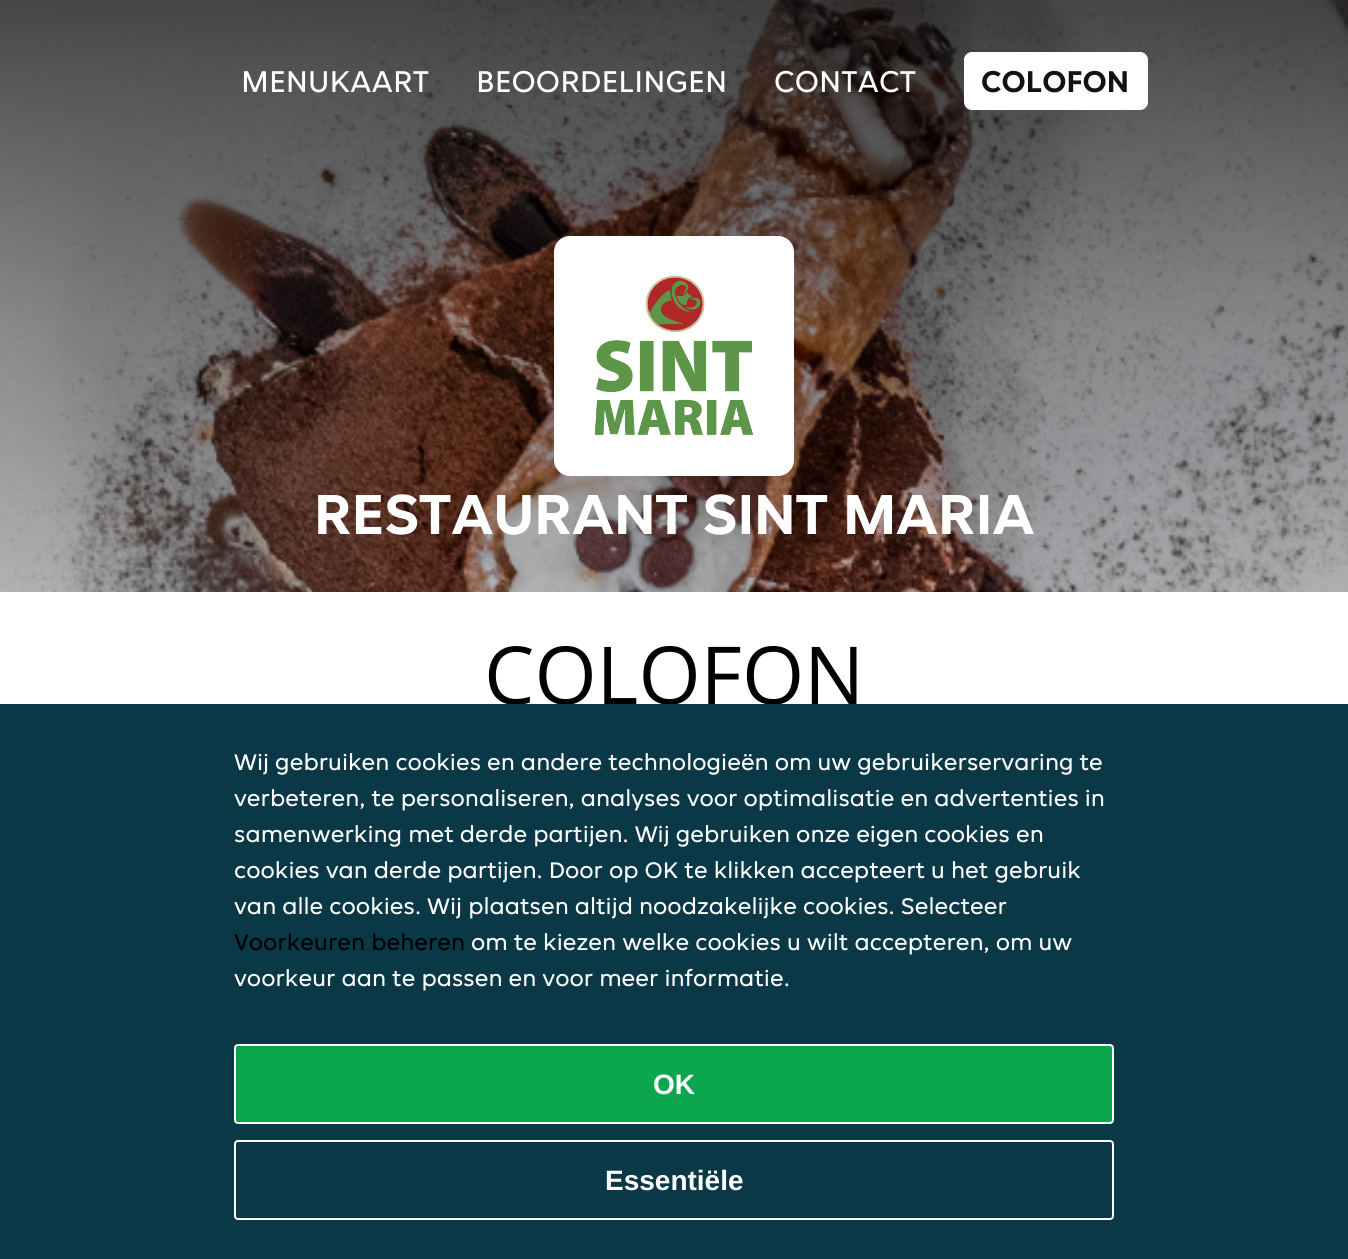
import math
import cairo

surface = cairo.ImageSurface(cairo.FORMAT_RGB24, 1348, 1259)
c = cairo.Context(surface)
options = cairo.FontOptions()
options.set_hint_metrics(cairo.HINT_METRICS_OFF)
options.set_hint_style(cairo.HINT_STYLE_NONE)
c.set_font_options(options)
c.set_miter_limit(4)
def C(code):
 c.set_source_rgb(*(v / 255 for v in bytes.fromhex(code[-6:])))
def F(family, size, italic, bold):
 c.select_font_face(family, cairo.FONT_SLANT_ITALIC if italic else cairo.FONT_SLANT_NORMAL, cairo.FONT_WEIGHT_BOLD if bold else cairo.FONT_WEIGHT_NORMAL)
 c.set_font_size(size)
def T(x, y, s):
 c.move_to(x, y)
 c.show_text(s)
def R(x, y, w, h):
 c.rectangle(x, y, w, h)
 c.fill()
def Q(x, y, w, h, r):
 c.new_sub_path()
 for i, (u, v) in enumerate([(x + w - r, y + h - r), (x + r, y + h - r), (x + r, y + r), (x + w - r, y + r)]):
  c.arc(u, v, r, i * math.pi / 2, (i + 1) * math.pi / 2)
 c.close_path()
def I(path, x, y, w, h):
 c.save()
 c.set_source_surface(cairo.ImageSurface.create_from_png(path), x, y)
 c.rectangle(x, y, w, h)
 c.fill()
 c.restore()
C('ffffff')
c.paint()
I('1.png',0,0,1348,592)
gradient = cairo.LinearGradient(674,0,674,1000)
gradient.add_color_stop_rgba(0,0,0,0,.7)
gradient.add_color_stop_rgba(.33,0,0,0,.4)
gradient.add_color_stop_rgba(.67,0,0,0,.2)
gradient.add_color_stop_rgba(1,0,0,0,0)
c.set_source(gradient)
R(0,0,1348,592)
F('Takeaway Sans',32,0,0)
C('ffffff')
T(241,92,'MENUKAART')
T(476,92,'BEOORDELINGEN')
T(774,92,'CONTACT')
Q(964,52,184,58,8)
c.fill()
F('Takeaway Sans',32,0,1)
C('121212')
T(981,92,'COLOFON')
C('ffffff')
Q(554,236,240,240,16)
c.fill()
I('2.png',595,275,158,160)
F('Takeaway Sans',60,0,1)
T(314,534,'RESTAURANT SINT MARIA')
F('Open Sans',80,0,0)
C('000000')
T(484,704,'COLOFON')
C('0a3847')
R(0,704,1348,555)
F('Takeaway Sans',24,0,0)
C('ffffff')
T(234,770,'Wij gebruiken cookies en andere technologieën om uw gebruikerservaring te')
T(234,806,'verbeteren, te personaliseren, analyses voor optimalisatie en advertenties in')
T(234,842,'samenwerking met derde partijen. Wij gebruiken onze eigen cookies en')
T(234,878,'cookies van derde partijen. Door op OK te klikken accepteert u het gebruik')
T(234,914,'van alle cookies. Wij plaatsen altijd noodzakelijke cookies. Selecteer')
C('000000')
T(234,950,'Voorkeuren beheren')
C('ffffff')
T(471,950,'om te kiezen welke cookies u wilt accepteren, om uw')
T(234,986,'voorkeur aan te passen en voor meer informatie.')
C('0ca64f')
Q(235,1045,878,78,3)
c.fill_preserve()
C('ffffff')
c.stroke()
F('Liberation Sans',28,0,1)
T(653,1094,'OK')
Q(235,1141,878,78,3)
c.stroke()
T(605,1190,'Essentiële')
surface.write_to_png('o.png')
